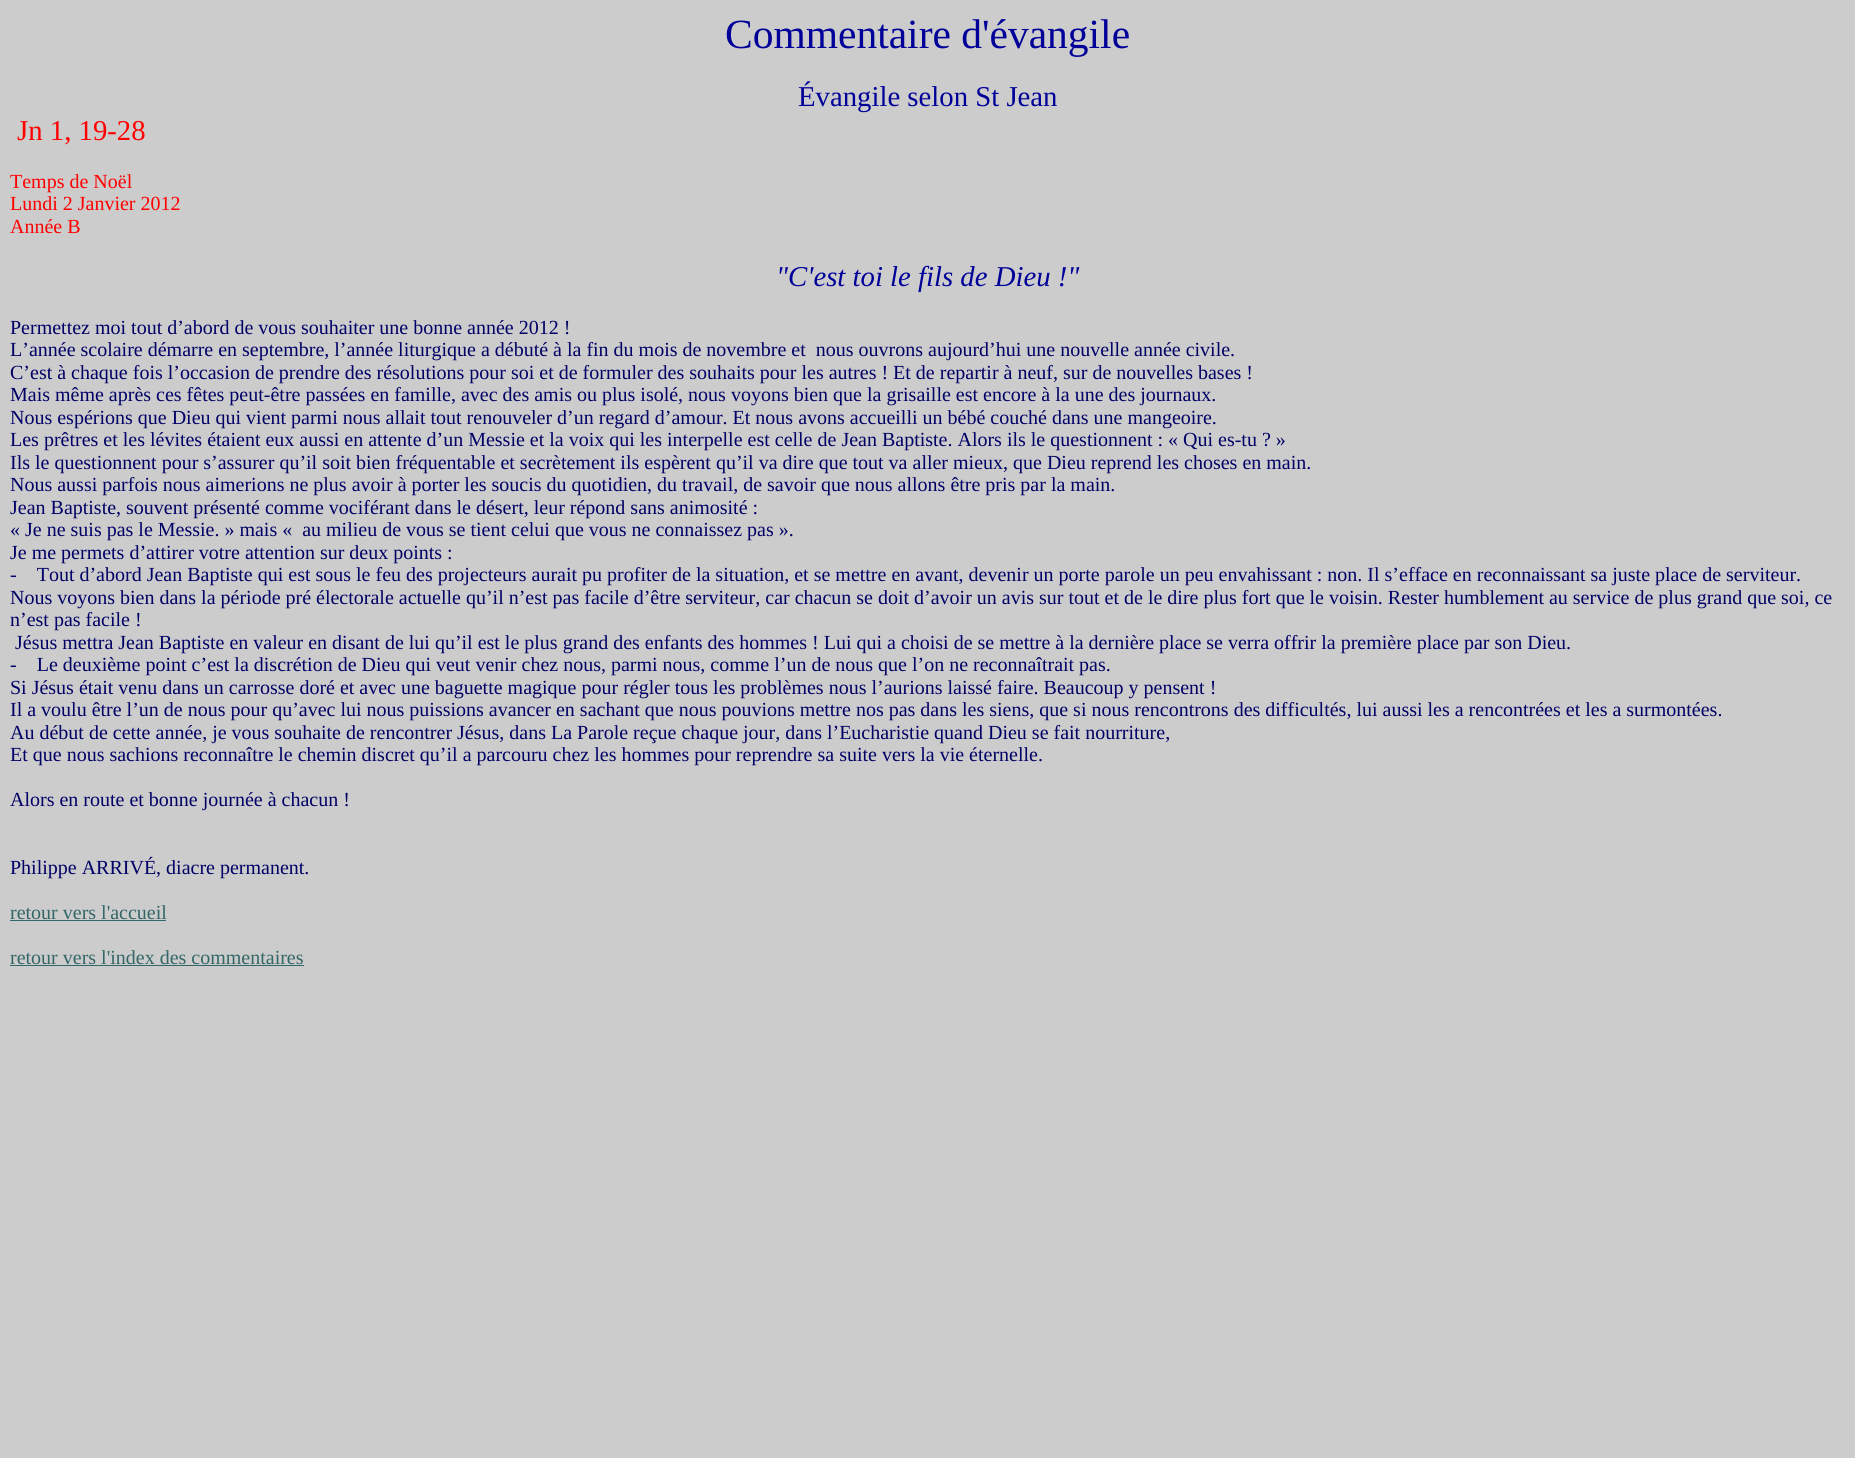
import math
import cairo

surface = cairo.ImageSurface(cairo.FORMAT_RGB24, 1855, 1458)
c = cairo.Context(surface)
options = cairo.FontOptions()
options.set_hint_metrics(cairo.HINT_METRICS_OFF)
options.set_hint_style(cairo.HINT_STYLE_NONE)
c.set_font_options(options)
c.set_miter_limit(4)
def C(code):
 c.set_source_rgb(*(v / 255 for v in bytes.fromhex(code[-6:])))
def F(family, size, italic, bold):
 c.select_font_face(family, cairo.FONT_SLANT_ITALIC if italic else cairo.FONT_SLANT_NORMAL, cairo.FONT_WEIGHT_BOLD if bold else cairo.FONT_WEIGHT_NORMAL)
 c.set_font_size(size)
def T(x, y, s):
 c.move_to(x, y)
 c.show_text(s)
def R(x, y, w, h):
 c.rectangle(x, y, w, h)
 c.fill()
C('cccccc')
c.paint()
F('Liberation Serif',41.5,0,0)
C('000099')
T(725,48,'Commentaire d\'évangile')
F('Liberation Serif',28.75,0,0)
T(798,106,'Évangile selon St Jean')
C('ff0000')
T(17,140,'Jn 1, 19-28')
F('Liberation Serif',20,0,0)
T(10,188,'Temps de Noël')
T(10,210,'Lundi 2 Janvier 2012')
T(10,233,'Année B')
F('Liberation Serif',28.75,1,0)
C('000099')
T(776,286,'"C\'est toi le fils de Dieu !"')
F('Liberation Serif',20,0,0)
C('000066')
T(10,334,'Permettez moi tout d’abord de vous souhaiter une bonne année 2012 !')
T(10,356,'L’année scolaire démarre en septembre, l’année liturgique a débuté à la fin du mois de novembre et  nous ouvrons aujourd’hui une nouvelle année civile.')
T(10,379,'C’est à chaque fois l’occasion de prendre des résolutions pour soi et de formuler des souhaits pour les autres ! Et de repartir à neuf, sur de nouvelles bases !')
T(10,401,'Mais même après ces fêtes peut-être passées en famille, avec des amis ou plus isolé, nous voyons bien que la grisaille est encore à la une des journaux.')
T(10,424,'Nous espérions que Dieu qui vient parmi nous allait tout renouveler d’un regard d’amour. Et nous avons accueilli un bébé couché dans une mangeoire.')
T(10,446,'Les prêtres et les lévites étaient eux aussi en attente d’un Messie et la voix qui les interpelle est celle de Jean Baptiste. Alors ils le questionnent : « Qui es-tu ? »')
T(10,469,'Ils le questionnent pour s’assurer qu’il soit bien fréquentable et secrètement ils espèrent qu’il va dire que tout va aller mieux, que Dieu reprend les choses en main.')
T(10,491,'Nous aussi parfois nous aimerions ne plus avoir à porter les soucis du quotidien, du travail, de savoir que nous allons être pris par la main.')
T(10,514,'Jean Baptiste, souvent présenté comme vociférant dans le désert, leur répond sans animosité :')
T(10,536,'« Je ne suis pas le Messie. » mais «  au milieu de vous se tient celui que vous ne connaissez pas ».')
T(10,559,'Je me permets d’attirer votre attention sur deux points :')
T(10,581,'-    Tout d’abord Jean Baptiste qui est sous le feu des projecteurs aurait pu profiter de la situation, et se mettre en avant, devenir un porte parole un peu envahissant : non. Il s’efface en reconnaissant sa juste place de serviteur.')
T(10,604,'Nous voyons bien dans la période pré électorale actuelle qu’il n’est pas facile d’être serviteur, car chacun se doit d’avoir un avis sur tout et de le dire plus fort que le voisin. Rester humblement au service de plus grand que soi, ce')
T(10,626,'n’est pas facile !')
T(15,649,'Jésus mettra Jean Baptiste en valeur en disant de lui qu’il est le plus grand des enfants des hommes ! Lui qui a choisi de se mettre à la dernière place se verra offrir la première place par son Dieu.')
T(10,671,'-    Le deuxième point c’est la discrétion de Dieu qui veut venir chez nous, parmi nous, comme l’un de nous que l’on ne reconnaîtrait pas.')
T(10,694,'Si Jésus était venu dans un carrosse doré et avec une baguette magique pour régler tous les problèmes nous l’aurions laissé faire. Beaucoup y pensent !')
T(10,716,'Il a voulu être l’un de nous pour qu’avec lui nous puissions avancer en sachant que nous pouvions mettre nos pas dans les siens, que si nous rencontrons des difficultés, lui aussi les a rencontrées et les a surmontées.')
T(10,739,'Au début de cette année, je vous souhaite de rencontrer Jésus, dans La Parole reçue chaque jour, dans l’Eucharistie quand Dieu se fait nourriture,')
T(10,761,'Et que nous sachions reconnaître le chemin discret qu’il a parcouru chez les hommes pour reprendre sa suite vers la vie éternelle.')
T(10,806,'Alors en route et bonne journée à chacun !')
T(10,874,'Philippe ARRIVÉ, diacre permanent.')
C('336666')
T(10,919,'retour vers l\'accueil')
R(10,920,156,1)
T(10,964,'retour vers l\'index des commentaires')
R(10,965,294,1)
surface.write_to_png('o.png')
